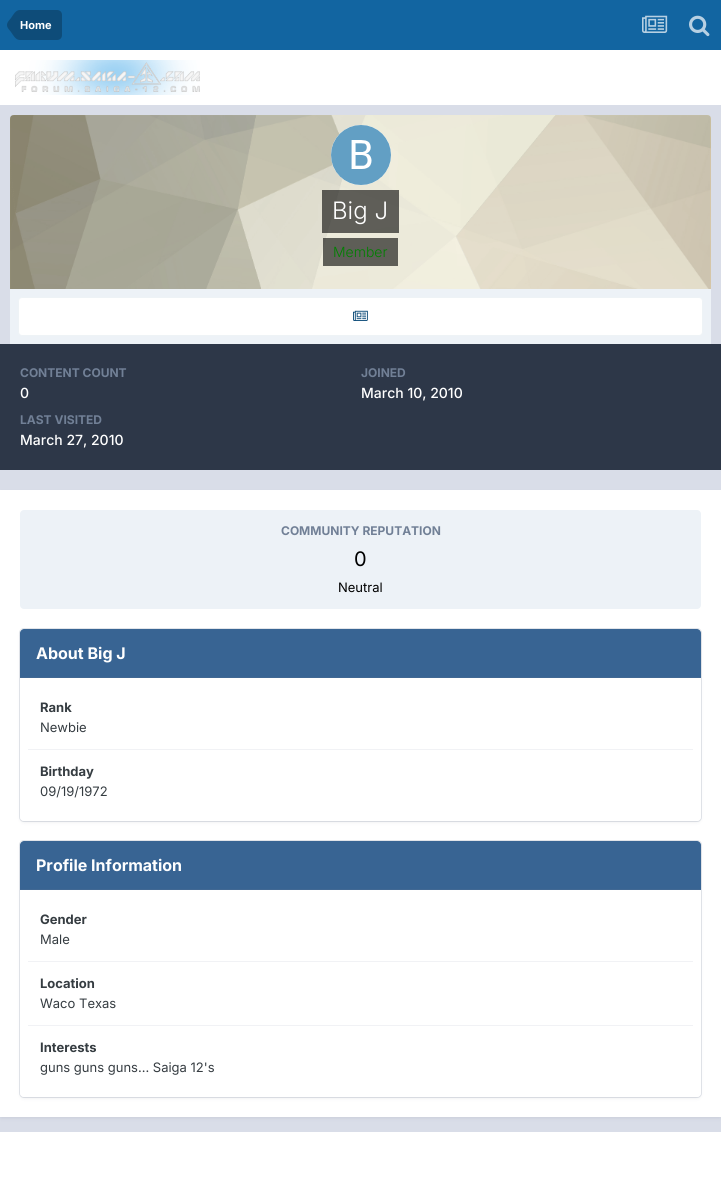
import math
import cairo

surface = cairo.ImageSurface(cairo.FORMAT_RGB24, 721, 1191)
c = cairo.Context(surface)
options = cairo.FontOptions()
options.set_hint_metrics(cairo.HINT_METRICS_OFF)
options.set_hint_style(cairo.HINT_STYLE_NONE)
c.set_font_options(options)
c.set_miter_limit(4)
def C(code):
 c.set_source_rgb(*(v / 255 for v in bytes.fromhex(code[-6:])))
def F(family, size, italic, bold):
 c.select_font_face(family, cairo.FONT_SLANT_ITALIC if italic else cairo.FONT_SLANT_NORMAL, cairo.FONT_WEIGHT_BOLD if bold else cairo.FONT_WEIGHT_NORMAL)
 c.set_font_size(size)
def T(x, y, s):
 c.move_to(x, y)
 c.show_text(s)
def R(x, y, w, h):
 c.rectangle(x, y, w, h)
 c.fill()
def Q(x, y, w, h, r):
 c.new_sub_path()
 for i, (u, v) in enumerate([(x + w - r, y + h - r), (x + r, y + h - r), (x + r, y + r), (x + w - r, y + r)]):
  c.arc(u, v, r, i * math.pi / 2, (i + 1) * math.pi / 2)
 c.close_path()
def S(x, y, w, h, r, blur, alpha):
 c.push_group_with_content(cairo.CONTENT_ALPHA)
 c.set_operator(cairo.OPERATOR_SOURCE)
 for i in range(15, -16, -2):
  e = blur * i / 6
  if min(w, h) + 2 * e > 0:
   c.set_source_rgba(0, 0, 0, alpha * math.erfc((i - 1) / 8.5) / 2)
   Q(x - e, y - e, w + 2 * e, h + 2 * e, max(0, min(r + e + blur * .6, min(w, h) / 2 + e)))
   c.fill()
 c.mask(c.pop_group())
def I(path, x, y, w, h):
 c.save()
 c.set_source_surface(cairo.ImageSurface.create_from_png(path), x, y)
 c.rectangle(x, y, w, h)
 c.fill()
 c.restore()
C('d9dde8')
c.paint()
C('1265a1')
R(0,0,721,50)
C('0e4c79')
c.new_path()
c.move_to(20,10)
c.line_to(57,10)
c.curve_to(60,10,62,12,62,15)
c.line_to(62,35)
c.curve_to(62,38,60,40,57,40)
c.line_to(20,40)
c.close_path()
c.fill()
c.new_path()
c.move_to(20,25)
c.line_to(20,40)
c.curve_to(15.5,40,13.5,35.5,11,32)
c.curve_to(9.5,30,7,28,7,25)
c.close_path()
c.move_to(20,25)
c.line_to(7,25)
c.curve_to(7,22,9.5,20,11,18)
c.curve_to(13.5,14.5,15.5,10,20,10)
c.close_path()
c.fill()
F('Inter',11,0,1)
C('ffffff')
T(20,29,'Home')
I('1.png',642,15,26,18)
I('2.png',689,15,21,22)
R(0,50,721,55)
I('3.png',15,60,185,35)
C('ffee99')
c.new_path()
c.move_to(14,115)
c.line_to(707,115)
c.curve_to(709,115,711,117,711,119)
c.line_to(711,289)
c.line_to(10,289)
c.line_to(10,119)
c.curve_to(10,117,12,115,14,115)
c.close_path()
c.fill()
I('4.png',10,115,701,174)
C('ffffff')
c.arc(361,155,30,0,2 * math.pi)
c.fill()
I('5.png',331,125,60,60)
c.set_source_rgba(0,0,0,0.6)
R(322,190,77,43)
F('Inter Light',24,0,0)
C('ffffff')
T(332,219,'Big J')
c.set_source_rgba(0,0,0,0.6)
R(323,238,75,28)
F('Inter Light',14,0,0)
C('008000')
T(333,257,'Member')
C('edf2f7')
R(10,289,701,55)
C('ffffff')
Q(18,297,685,39,4)
c.fill()
Q(18.5,297.5,684,38,3.5)
c.set_source_rgba(0.055,0.298,0.475,0.07)
c.set_line_width(1)
c.stroke()
I('6.png',353,310,15,11)
C('2d3748')
R(0,344,721,126)
F('Inter',12,0,1)
C('718096')
T(20,377,'CONTENT COUNT')
F('Inter Medium',14,0,0)
C('ffffff')
T(20,398,'0')
F('Inter',12,0,1)
C('718096')
T(361,377,'JOINED')
F('Inter Medium',14,0,0)
C('ffffff')
T(361,398,'March 10, 2010')
F('Inter',12,0,1)
C('718096')
T(20,424,'LAST VISITED')
F('Inter Medium',14,0,0)
C('ffffff')
T(20,445,'March 27, 2010')
C('2d3748')
S(1,493,719,625,0,2,.1)
C('ffffff')
R(0,490,721,627)
C('edf2f7')
Q(20,510,681,99,4)
c.fill()
F('Inter',12,0,1)
C('718096')
T(281,535,'COMMUNITY REPUTATION')
F('Inter',20,0,0)
C('000000')
T(354,566,'0')
F('Inter',13,0,0)
T(338,592,'Neutral')
C('2d3748')
S(21,632,679,190,3,2,.1)
Q(19.5,628.5,682,193,4.5)
c.set_source_rgba(0.443,0.502,0.588,0.2)
c.stroke()
C('ffffff')
Q(20,629,681,192,4)
c.fill()
C('386493')
c.new_path()
c.move_to(24,629)
c.line_to(697,629)
c.curve_to(699,629,701,631,701,633)
c.line_to(701,678)
c.line_to(20,678)
c.line_to(20,633)
c.curve_to(20,631,22,629,24,629)
c.close_path()
c.fill()
C('416893')
R(20,677,681,1)
F('Inter',16,0,1)
C('ffffff')
T(36,659,'About Big J')
C('f1f2f5')
R(28,749,665,1)
F('Inter',13,0,1)
C('353c41')
T(40,712,'Rank')
F('Inter',13,0,0)
T(40,732,'Newbie')
F('Inter',13,0,1)
T(40,776,'Birthday')
F('Inter',13,0,0)
T(40,796,'09/19/1972')
C('2d3748')
S(21,844,679,254,3,2,.1)
Q(19.5,840.5,682,257,4.5)
c.set_source_rgba(0.443,0.502,0.588,0.2)
c.stroke()
C('ffffff')
Q(20,841,681,256,4)
c.fill()
C('386493')
c.new_path()
c.move_to(24,841)
c.line_to(697,841)
c.curve_to(699,841,701,843,701,845)
c.line_to(701,890)
c.line_to(20,890)
c.line_to(20,845)
c.curve_to(20,843,22,841,24,841)
c.close_path()
c.fill()
C('416893')
R(20,889,681,1)
F('Inter',16,0,1)
C('ffffff')
T(36,871,'Profile Information')
C('f1f2f5')
R(28,961,665,1)
F('Inter',13,0,1)
C('353c41')
T(40,924,'Gender')
F('Inter',13,0,0)
T(40,944,'Male')
C('f1f2f5')
R(28,1025,665,1)
F('Inter',13,0,1)
C('353c41')
T(40,988,'Location')
F('Inter',13,0,0)
T(40,1008,'Waco Texas')
F('Inter',13,0,1)
T(40,1052,'Interests')
F('Inter',13,0,0)
T(40,1072,'guns guns guns... Saiga 12\'s')
C('ffffff')
R(0,1132,721,59)
surface.write_to_png('o.png')
